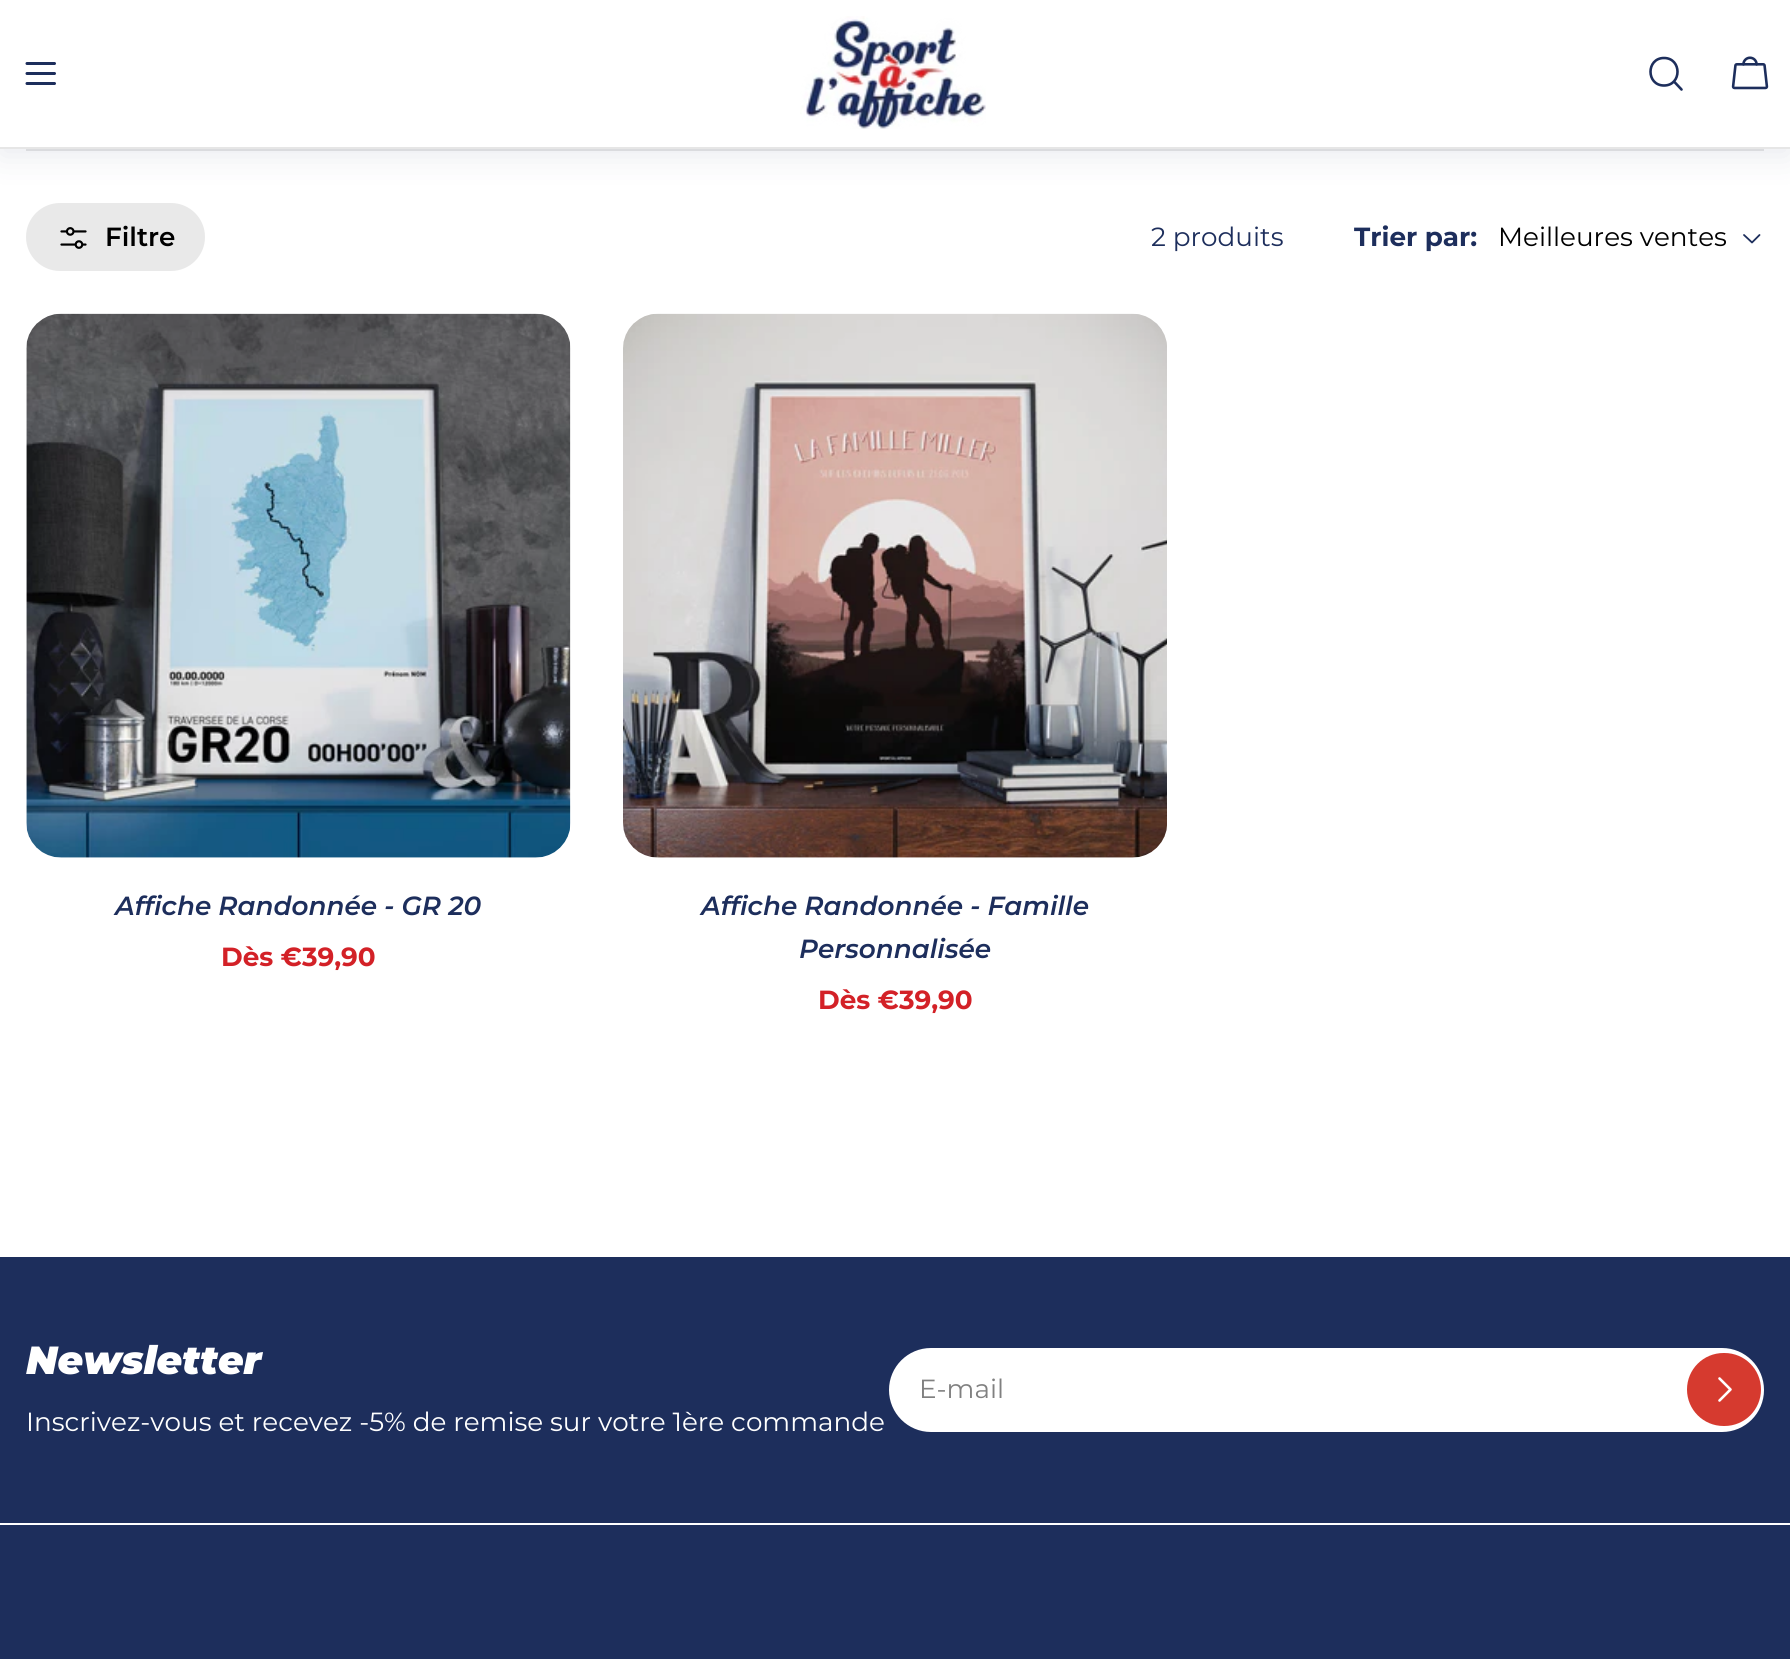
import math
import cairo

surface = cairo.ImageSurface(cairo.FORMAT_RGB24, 1790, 1659)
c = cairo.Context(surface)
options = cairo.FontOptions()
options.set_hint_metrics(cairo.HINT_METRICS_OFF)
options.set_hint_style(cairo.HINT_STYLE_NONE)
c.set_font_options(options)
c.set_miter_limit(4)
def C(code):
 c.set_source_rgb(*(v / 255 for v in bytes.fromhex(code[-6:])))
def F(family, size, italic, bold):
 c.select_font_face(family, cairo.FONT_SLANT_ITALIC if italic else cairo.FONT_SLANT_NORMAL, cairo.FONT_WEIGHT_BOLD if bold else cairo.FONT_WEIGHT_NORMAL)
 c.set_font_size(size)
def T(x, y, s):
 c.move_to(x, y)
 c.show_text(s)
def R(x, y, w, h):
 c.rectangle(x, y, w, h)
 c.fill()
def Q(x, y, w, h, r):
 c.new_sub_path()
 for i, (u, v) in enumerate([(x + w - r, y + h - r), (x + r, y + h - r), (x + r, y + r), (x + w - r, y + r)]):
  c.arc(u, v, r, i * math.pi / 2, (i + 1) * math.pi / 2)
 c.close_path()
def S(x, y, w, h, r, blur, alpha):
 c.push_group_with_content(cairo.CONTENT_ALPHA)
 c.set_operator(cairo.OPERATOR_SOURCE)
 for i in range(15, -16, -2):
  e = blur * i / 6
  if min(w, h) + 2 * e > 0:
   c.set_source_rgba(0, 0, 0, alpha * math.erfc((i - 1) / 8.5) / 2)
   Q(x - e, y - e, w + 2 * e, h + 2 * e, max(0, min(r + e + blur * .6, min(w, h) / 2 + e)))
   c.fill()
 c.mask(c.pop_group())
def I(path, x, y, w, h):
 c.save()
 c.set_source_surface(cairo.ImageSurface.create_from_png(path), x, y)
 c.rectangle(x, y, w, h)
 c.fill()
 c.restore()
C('ffffff')
c.paint()
C('e6e6e6')
R(26,149,1738,2)
C('e9e9e9')
Q(27,204,177,66,33)
c.fill_preserve()
c.stroke()
C('1d2e5c')
S(0,7,1790,149,0,16,.1)
C('e6e6e6')
R(0,147,1790,2)
C('ffffff')
R(0,0,1790,147)
c.new_path()
c.move_to(27,73.5)
c.line_to(54.5,73.5)
c.move_to(27,63.5)
c.line_to(54.5,63.5)
c.move_to(27,83.5)
c.line_to(54.5,83.5)
C('1d2e5c')
c.set_line_width(3)
c.set_line_cap(cairo.LINE_CAP_ROUND)
c.set_line_join(cairo.LINE_JOIN_ROUND)
c.stroke()
I('1.png',800,16,186,113)
c.new_path()
c.move_to(1664,85.5)
c.curve_to(1682,85.5,1682,58,1664,58)
c.curve_to(1646,58,1646,85.5,1664,85.5)
c.close_path()
c.move_to(1674,81.5)
c.line_to(1681.5,89.5)
c.set_line_width(2.6)
c.stroke()
I('2.png',1731,56,38,34)
I('3.png',60,227,27,22)
F('Montserrat SemiBold',26.25,0,0)
C('000000')
T(105,246,'Filtre')
F('Montserrat',26.25,0,0)
C('1d2e5c')
T(1151,246,'2 produits')
F('Montserrat',26.25,0,1)
T(1354,246,'Trier par:')
F('Montserrat',26.25,0,0)
C('000000')
T(1498,246,'Meilleures ventes')
c.new_path()
c.move_to(1759.5,235)
c.line_to(1752,242.5)
c.line_to(1744,235)
C('1d2e5c')
c.set_line_width(1.8)
c.stroke()
I('4.png',26,313,545,545)
F('Montserrat SemiBold',26.25,1,0)
T(115,915,'Affiche Randonnée - GR 20')
F('Montserrat',26.25,0,1)
C('d32127')
T(221,966,'Dès €39,90')
I('5.png',623,313,544,545)
F('Montserrat SemiBold',26.25,1,0)
C('1d2e5c')
T(701,915,'Affiche Randonnée - Famille')
T(799,958,'Personnalisée')
F('Montserrat',26.25,0,1)
C('d32127')
T(818,1009,'Dès €39,90')
C('1d2e5c')
R(0,1257,1790,266)
F('Montserrat Black',39.25,1,0)
C('ffffff')
T(26,1374,'Newsletter')
F('Montserrat',26.25,0,0)
T(26,1431,'Inscrivez-vous et recevez -5% de remise sur votre 1ère commande')
Q(890,1349,873,82,41)
c.fill_preserve()
c.set_line_width(2)
c.set_line_cap(cairo.LINE_CAP_BUTT)
c.set_line_join(cairo.LINE_JOIN_MITER)
c.stroke()
C('808080')
T(919,1398,'E-mail')
C('d63a2f')
Q(1687,1353,74,73,36.5)
c.fill()
c.new_path()
c.move_to(1719.5,1378.5)
c.line_to(1730.5,1389.5)
c.line_to(1719.5,1400.5)
C('ffffff')
c.set_line_width(2.6)
c.set_line_cap(cairo.LINE_CAP_ROUND)
c.set_line_join(cairo.LINE_JOIN_ROUND)
c.stroke()
C('1d2e5c')
R(0,1525,1790,134)
surface.write_to_png('o.png')
